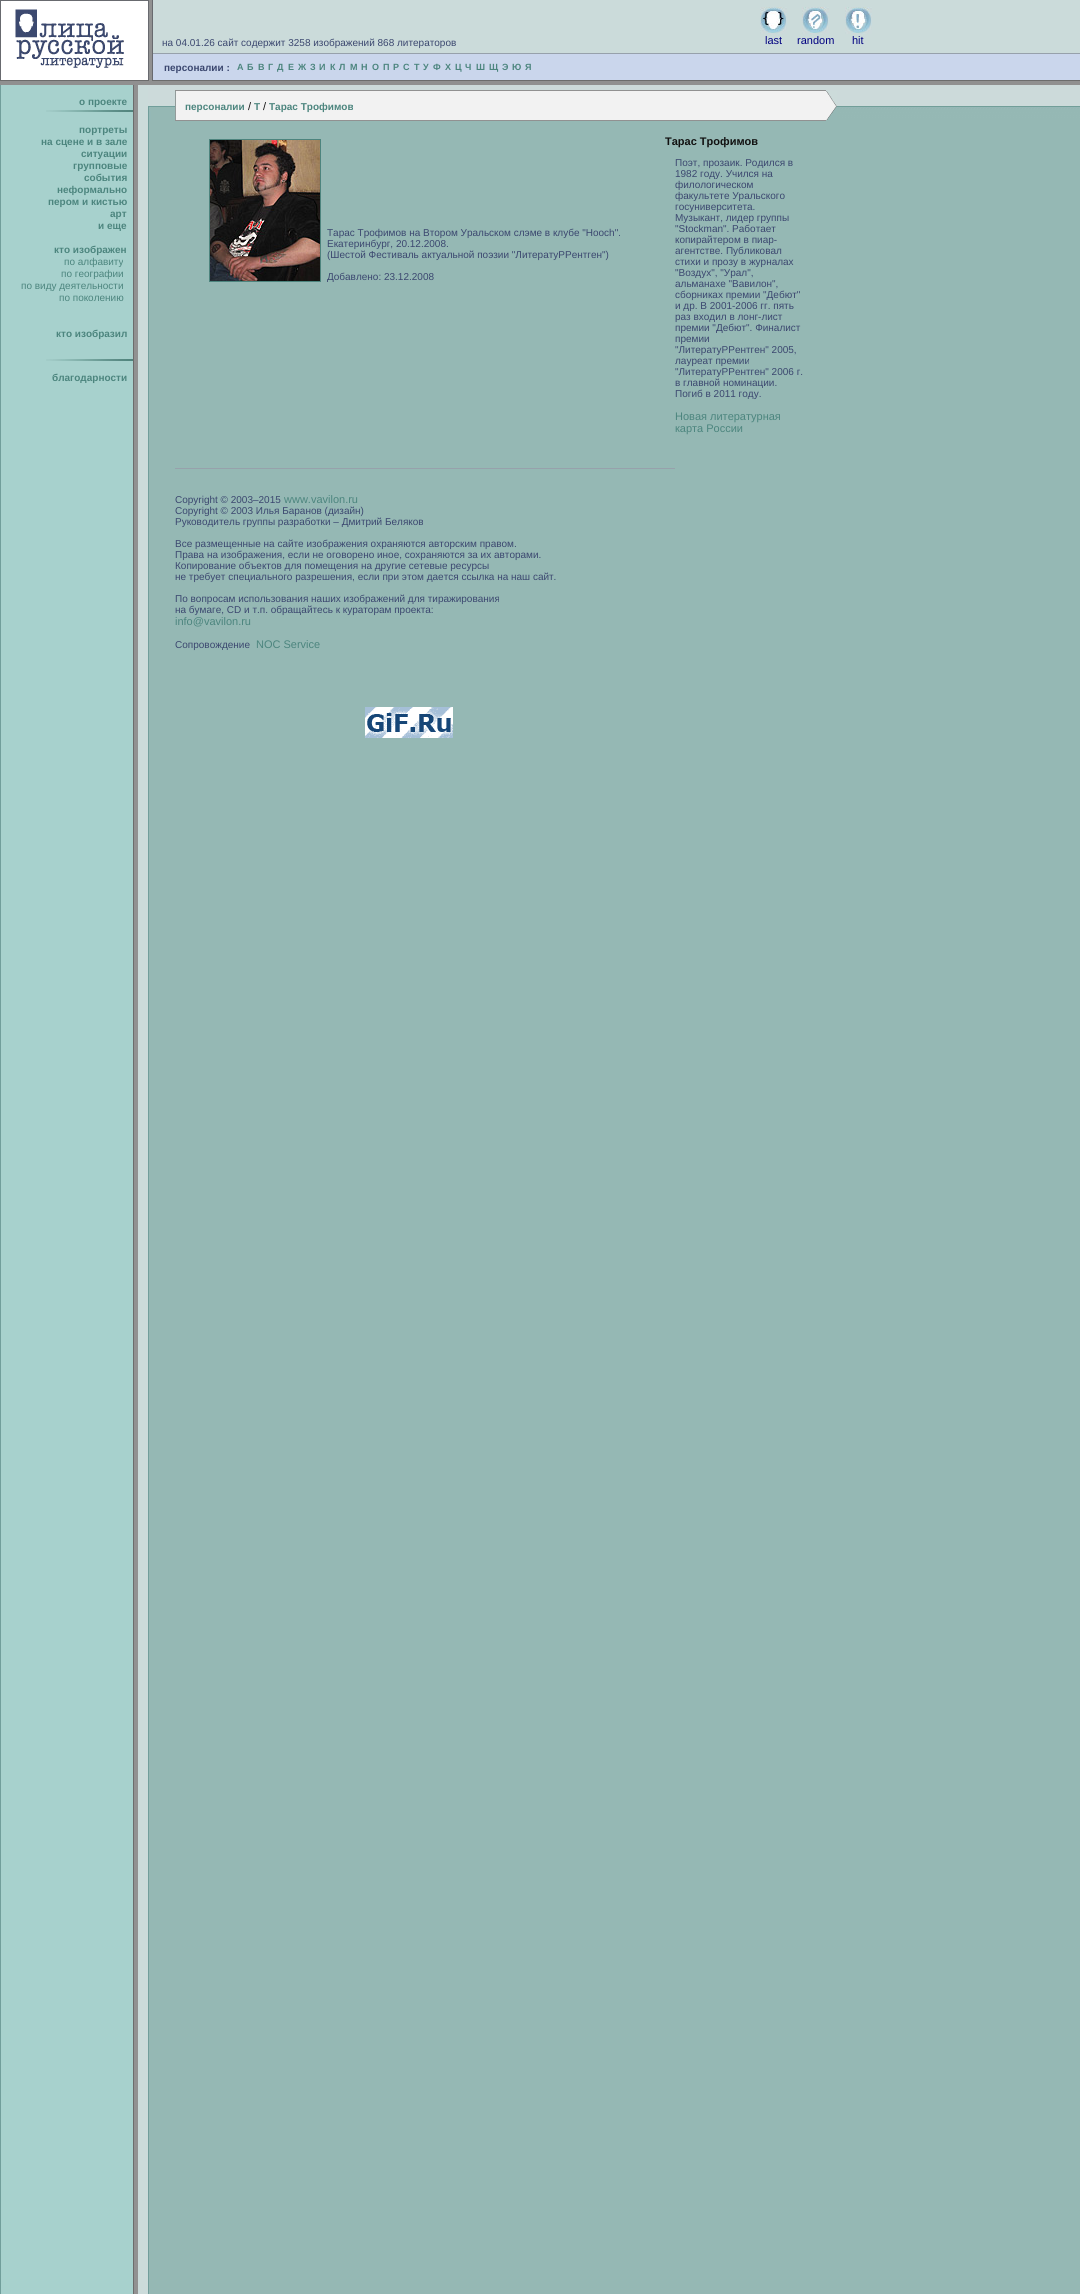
import math
import cairo

surface = cairo.ImageSurface(cairo.FORMAT_RGB24, 1080, 2294)
c = cairo.Context(surface)
options = cairo.FontOptions()
options.set_hint_metrics(cairo.HINT_METRICS_OFF)
options.set_hint_style(cairo.HINT_STYLE_NONE)
c.set_font_options(options)
c.set_miter_limit(4)
def C(code):
 c.set_source_rgb(*(v / 255 for v in bytes.fromhex(code[-6:])))
def F(family, size, italic, bold):
 c.select_font_face(family, cairo.FONT_SLANT_ITALIC if italic else cairo.FONT_SLANT_NORMAL, cairo.FONT_WEIGHT_BOLD if bold else cairo.FONT_WEIGHT_NORMAL)
 c.set_font_size(size)
def T(x, y, s):
 c.move_to(x, y)
 c.show_text(s)
def R(x, y, w, h):
 c.rectangle(x, y, w, h)
 c.fill()
def I(path, x, y, w, h):
 c.save()
 c.set_source_surface(cairo.ImageSurface.create_from_png(path), x, y)
 c.rectangle(x, y, w, h)
 c.fill()
 c.restore()
C('ffffff')
c.paint()
I('1.png',0,85,1080,2209)
I('2.png',0,0,153,80)
C('cbdbda')
R(153,0,927,53)
F('Liberation Sans',10,0,0)
C('3b476f')
T(162,46,'на 04.01.26 сайт содержит 3258 изображений 868 литераторов')
I('3.png',760,7,27,27)
F('Liberation Sans',11,0,0)
C('000080')
T(765,44,'last')
I('4.png',802,7,27,27)
T(797,44,'random')
I('5.png',845,7,27,27)
T(852,44,'hit')
C('97a1ab')
R(153,53,927,1)
C('cad6ec')
R(153,54,927,26)
F('Liberation Sans',10,0,1)
C('3b476f')
T(164,71,'персоналии :')
F('Liberation Sans',9,0,1)
C('4c857e')
T(237,70,'А')
T(247,70,'Б')
T(258,70,'В')
T(268,70,'Г')
T(277,70,'Д')
T(288,70,'Е')
T(298,70,'Ж')
T(310,70,'З')
T(319,70,'И')
T(330,70,'К')
T(339,70,'Л')
T(350,70,'М')
T(361,70,'Н')
T(372,70,'О')
T(383,70,'П')
T(393,70,'Р')
T(403,70,'С')
T(414,70,'Т')
T(423,70,'У')
T(433,70,'Ф')
T(445,70,'Х')
T(455,70,'Ц')
T(465,70,'Ч')
T(476,70,'Ш')
T(489,70,'Щ')
T(502,70,'Э')
T(512,70,'Ю')
T(525,70,'Я')
C('6c6c6c')
R(0,80,1080,1)
C('919191')
R(149,80,3,1)
C('909090')
R(0,81,1080,4)
C('ccdada')
R(148,85,932,5)
F('Liberation Sans',10,0,1)
C('4c857e')
T(79,105,'о проекте')
I('6.png',46,110,87,2)
C('ccdada')
R(826,90,254,16)
I('7.png',826,106,254,15)
C('919191')
R(175,90,651,1)
C('ccdada')
R(148,90,27,1)
I('8.png',148,91,28,29)
C('f2f2f2')
R(176,91,650,29)
C('4c857e')
T(185,110,'персоналии')
F('Liberation Sans',11,0,0)
C('111111')
T(248,110,'/')
F('Liberation Sans',10,0,1)
C('4c857e')
T(254,110,'Т')
F('Liberation Sans',11,0,0)
C('111111')
T(263,110,'/')
F('Liberation Sans',10,0,1)
C('4c857e')
T(269,110,'Тарас Трофимов')
I('9.png',826,91,11,29)
C('919191')
R(175,120,651,1)
I('10.png',148,120,27,1)
C('4c857e')
T(79,133,'портреты')
T(41,145,'на сцене и в зале')
T(81,157,'ситуации')
T(73,169,'групповые')
T(84,181,'события')
T(57,193,'неформально')
T(48,205,'пером и кистью')
T(110,217,'арт')
T(98,229,'и еще')
T(54,253,'кто изображен')
F('Liberation Sans',10,0,0)
T(64,265,'по алфавиту')
T(61,277,'по географии')
T(21,289,'по виду деятельности')
T(59,301,'по поколению')
F('Liberation Sans',10,0,1)
T(56,337,'кто изобразил')
I('6.png',46,359,87,2)
T(52,381,'благодарности')
c.rectangle(209.5,139.5,111,142)
C('4d847e')
c.set_line_width(1)
c.stroke()
I('11.png',210,140,110,141)
F('Liberation Sans',10,0,0)
C('3b476f')
T(327,236,'Тарас Трофимов на Втором Уральском слэме в клубе "Hooch".')
T(327,247,'Екатеринбург, 20.12.2008.')
T(327,258,'(Шестой Фестиваль актуальной поэзии "ЛитератуРРентген")')
T(327,280,'Добавлено: 23.12.2008')
F('Liberation Sans',11,0,1)
C('111111')
T(665,145,'Тарас Трофимов')
F('Liberation Sans',10,0,0)
C('3b476f')
T(675,166,'Поэт, прозаик. Родился в')
T(675,177,'1982 году. Учился на')
T(675,188,'филологическом')
T(675,199,'факультете Уральского')
T(675,210,'госуниверситета.')
T(675,221,'Музыкант, лидер группы')
T(675,232,'"Stockman". Работает')
T(675,243,'копирайтером в пиар-')
T(675,254,'агентстве. Публиковал')
T(675,265,'стихи и прозу в журналах')
T(675,276,'"Воздух", "Урал",')
T(675,287,'альманахе "Вавилон",')
T(675,298,'сборниках премии "Дебют"')
T(675,309,'и др. В 2001-2006 гг. пять')
T(675,320,'раз входил в лонг-лист')
T(675,331,'премии "Дебют". Финалист')
T(675,342,'премии')
T(675,353,'"ЛитератуРРентген" 2005,')
T(675,364,'лауреат премии')
T(675,375,'"ЛитератуРРентген" 2006 г.')
T(675,386,'в главной номинации.')
T(675,397,'Погиб в 2011 году.')
F('Liberation Sans',11,0,0)
C('4c857e')
T(675,420,'Новая литературная')
T(675,432,'карта России')
C('97a1ab')
R(175,468,500,1)
F('Liberation Sans',10,0,0)
C('3b476f')
T(175,503,'Copyright © 2003–2015')
F('Liberation Sans',11,0,0)
C('4c857e')
T(284,503,'www.vavilon.ru')
F('Liberation Sans',10,0,0)
C('3b476f')
T(175,514,'Copyright © 2003 Илья Баранов (дизайн)')
T(175,525,'Руководитель группы разработки – Дмитрий Беляков')
T(175,547,'Все размещенные на сайте изображения охраняются авторским правом.')
T(175,558,'Права на изображения, если не оговорено иное, сохраняются за их авторами.')
T(175,569,'Копирование объектов для помещения на другие сетевые ресурсы')
T(175,580,'не требует специального разрешения, если при этом дается ссылка на наш сайт.')
T(175,602,'По вопросам использования наших изображений для тиражирования')
T(175,613,'на бумаге, CD и т.п. обращайтесь к кураторам проекта:')
F('Liberation Sans',11,0,0)
C('4c857e')
T(175,625,'info@vavilon.ru')
F('Liberation Sans',10,0,0)
C('3b476f')
T(175,648,'Сопровождение')
F('Liberation Sans',11,0,0)
C('4c857e')
T(256,648,'NOC Service')
I('12.png',365,707,88,31)
surface.write_to_png('o.png')
